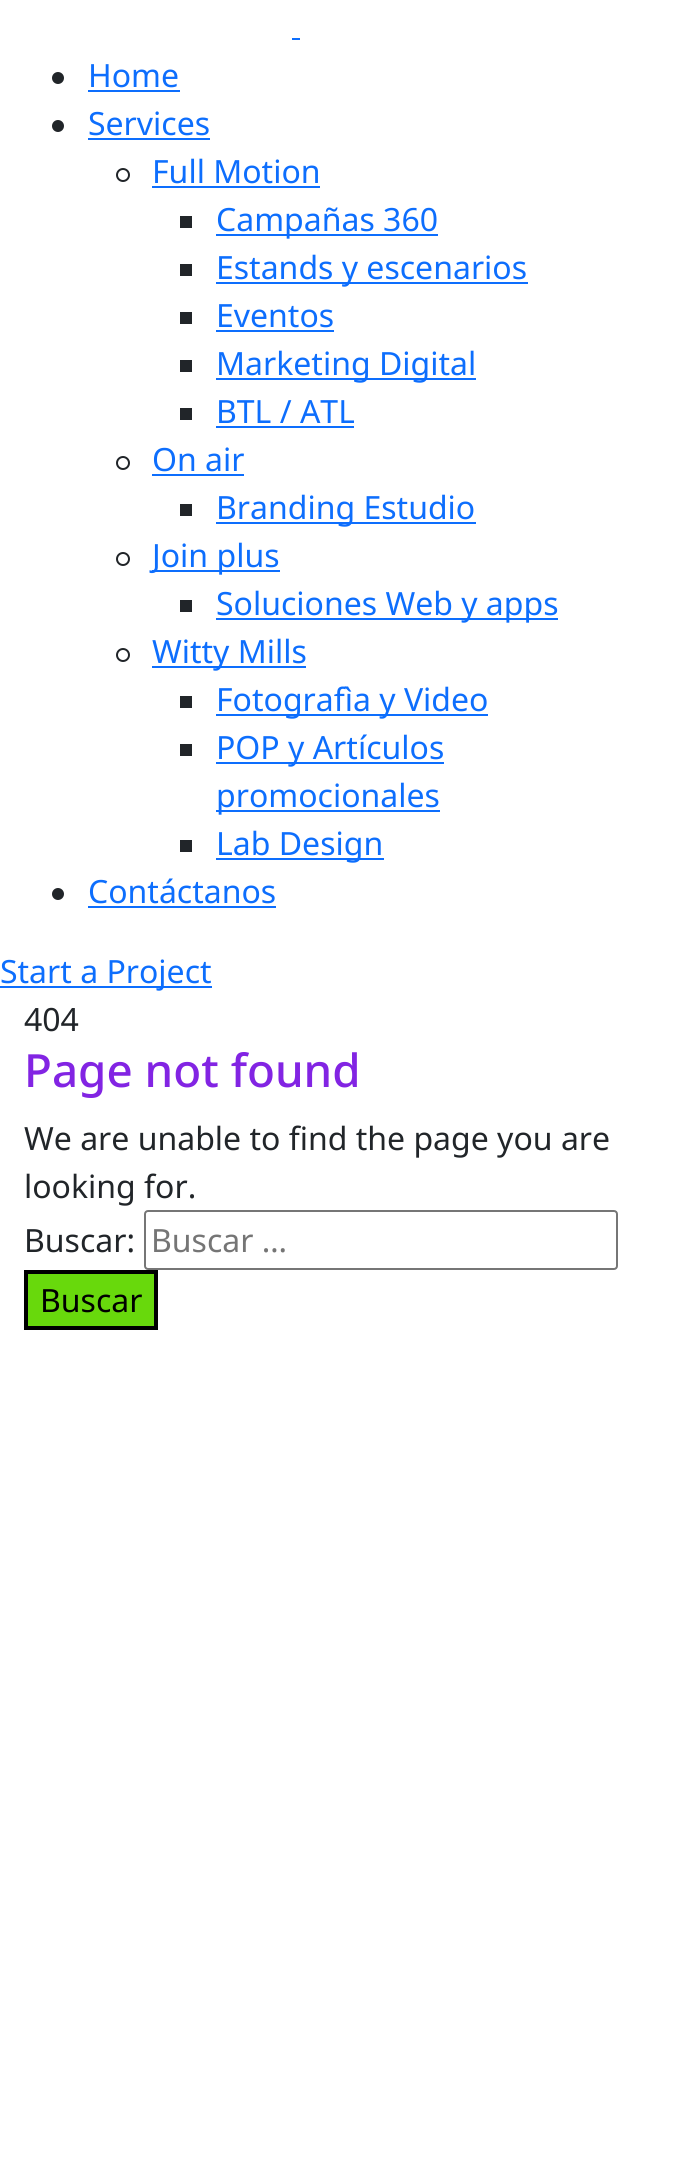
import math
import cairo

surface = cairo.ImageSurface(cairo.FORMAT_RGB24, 678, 2181)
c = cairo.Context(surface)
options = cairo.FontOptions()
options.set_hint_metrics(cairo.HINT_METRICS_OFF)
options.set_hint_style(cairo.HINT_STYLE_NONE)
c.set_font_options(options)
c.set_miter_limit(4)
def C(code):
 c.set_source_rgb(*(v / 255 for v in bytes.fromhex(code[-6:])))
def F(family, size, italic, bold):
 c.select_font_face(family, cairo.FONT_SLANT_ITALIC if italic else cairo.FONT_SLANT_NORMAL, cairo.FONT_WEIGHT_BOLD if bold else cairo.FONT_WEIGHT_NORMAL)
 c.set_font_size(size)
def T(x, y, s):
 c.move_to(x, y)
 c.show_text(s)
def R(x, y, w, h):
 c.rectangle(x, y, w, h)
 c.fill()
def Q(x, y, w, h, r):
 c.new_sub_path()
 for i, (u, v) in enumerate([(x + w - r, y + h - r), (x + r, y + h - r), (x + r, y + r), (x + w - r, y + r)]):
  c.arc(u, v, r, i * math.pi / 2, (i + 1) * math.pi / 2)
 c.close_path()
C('ffffff')
c.paint()
C('0d6efd')
R(292,38,8,2)
C('212529')
c.arc(58,78,6,0,2 * math.pi)
c.fill()
F('Noto Sans',32,0,0)
C('0d6efd')
T(88,87,'Home')
R(88,90,92,2)
C('212529')
c.new_path()
c.arc(58,126,6,0,2 * math.pi)
c.fill()
C('0d6efd')
T(88,135,'Services')
R(88,138,122,2)
c.new_path()
c.arc(123,175,6,0,2 * math.pi)
C('212529')
c.stroke()
C('0d6efd')
T(152,183,'Full Motion')
R(152,186,168,2)
C('212529')
R(180,216,12,12)
C('0d6efd')
R(216,234,222,2)
T(216,231,'Campañas 360')
C('212529')
R(180,264,12,12)
C('0d6efd')
R(216,282,312,2)
T(216,279,'Estands y escenarios')
C('212529')
R(180,312,12,12)
C('0d6efd')
T(216,327,'Eventos')
R(216,330,118,2)
C('212529')
R(180,360,12,12)
C('0d6efd')
R(216,378,260,2)
T(216,375,'Marketing Digital')
C('212529')
R(180,408,12,12)
C('0d6efd')
T(216,423,'BTL / ATL')
R(216,426,138,2)
c.new_path()
c.arc(123,463,6,0,2 * math.pi)
C('212529')
c.stroke()
C('0d6efd')
T(152,471,'On air')
R(152,474,92,2)
C('212529')
R(180,504,12,12)
C('0d6efd')
R(216,522,260,2)
T(216,519,'Branding Estudio')
c.new_path()
c.arc(123,559,6,0,2 * math.pi)
C('212529')
c.stroke()
C('0d6efd')
R(152,570,128,2)
T(152,567,'Join plus')
C('212529')
R(180,600,12,12)
C('0d6efd')
R(216,618,342,2)
T(216,615,'Soluciones Web y apps')
c.new_path()
c.arc(123,655,6,0,2 * math.pi)
C('212529')
c.stroke()
C('0d6efd')
R(152,666,154,2)
T(152,663,'Witty Mills')
C('212529')
R(180,696,12,12)
C('0d6efd')
R(216,714,272,2)
T(216,711,'Fotografìa y Video')
C('212529')
R(180,744,12,12)
C('0d6efd')
R(216,762,228,2)
T(216,759,'POP y Artículos')
R(216,810,224,2)
T(216,807,'promocionales')
C('212529')
R(180,840,12,12)
C('0d6efd')
R(216,858,168,2)
T(216,855,'Lab Design')
C('212529')
c.new_path()
c.arc(58,894,6,0,2 * math.pi)
c.fill()
C('0d6efd')
T(88,903,'Contáctanos')
R(88,906,188,2)
R(0,986,212,2)
T(0,983,'Start a Project')
C('212529')
T(24,1031,'404')
F('Noto Sans Medium',45.75,0,0)
C('8224e3')
T(24,1087,'Page not found')
F('Noto Sans',32,0,0)
C('212529')
T(24,1150,'We are unable to find the page you are')
T(24,1198,'looking for.')
T(24,1252,'Buscar:')
Q(145,1211,472,58,3)
C('767676')
c.stroke()
C('757575')
T(151,1252,'Buscar …')
C('68d90c')
c.rectangle(26,1272,130,56)
c.fill_preserve()
C('000000')
c.set_line_width(4)
c.stroke()
T(40,1312,'Buscar')
surface.write_to_png('o.png')
